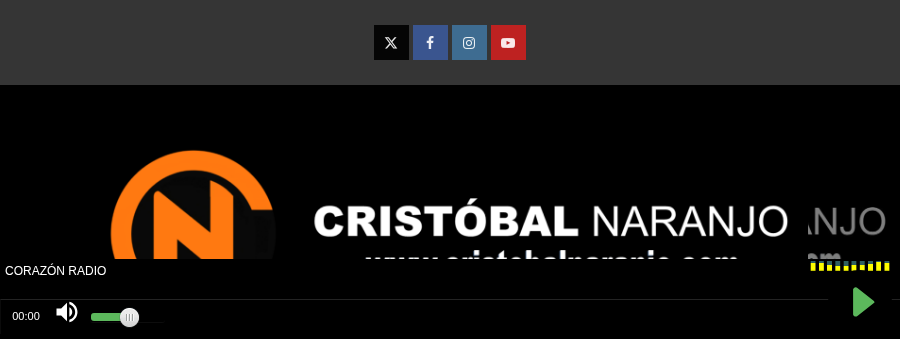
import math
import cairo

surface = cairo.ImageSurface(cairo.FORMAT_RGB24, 900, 339)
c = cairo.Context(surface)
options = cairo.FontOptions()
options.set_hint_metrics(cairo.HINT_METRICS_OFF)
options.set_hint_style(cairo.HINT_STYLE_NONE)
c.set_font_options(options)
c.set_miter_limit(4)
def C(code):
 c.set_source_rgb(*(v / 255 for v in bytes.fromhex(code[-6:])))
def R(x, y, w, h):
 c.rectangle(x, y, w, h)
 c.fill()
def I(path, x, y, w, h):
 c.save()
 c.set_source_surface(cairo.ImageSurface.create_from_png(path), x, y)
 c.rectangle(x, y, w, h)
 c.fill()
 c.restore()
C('353535')
c.paint()
C('050505')
R(374,25,35,35)
I('1.png',384,37,14,12)
C('3a558f')
R(413,25,35,35)
I('2.png',426,36,8,13)
C('3e6c91')
R(452,25,35,35)
I('3.png',463,37,12,12)
C('be2221')
R(491,25,35,35)
I('4.png',501,38,14,10)
I('5.png',0,85,900,254)
I('6.png',110,149,698,110)
I('7.png',0,259,900,75)
surface.write_to_png('o.png')
